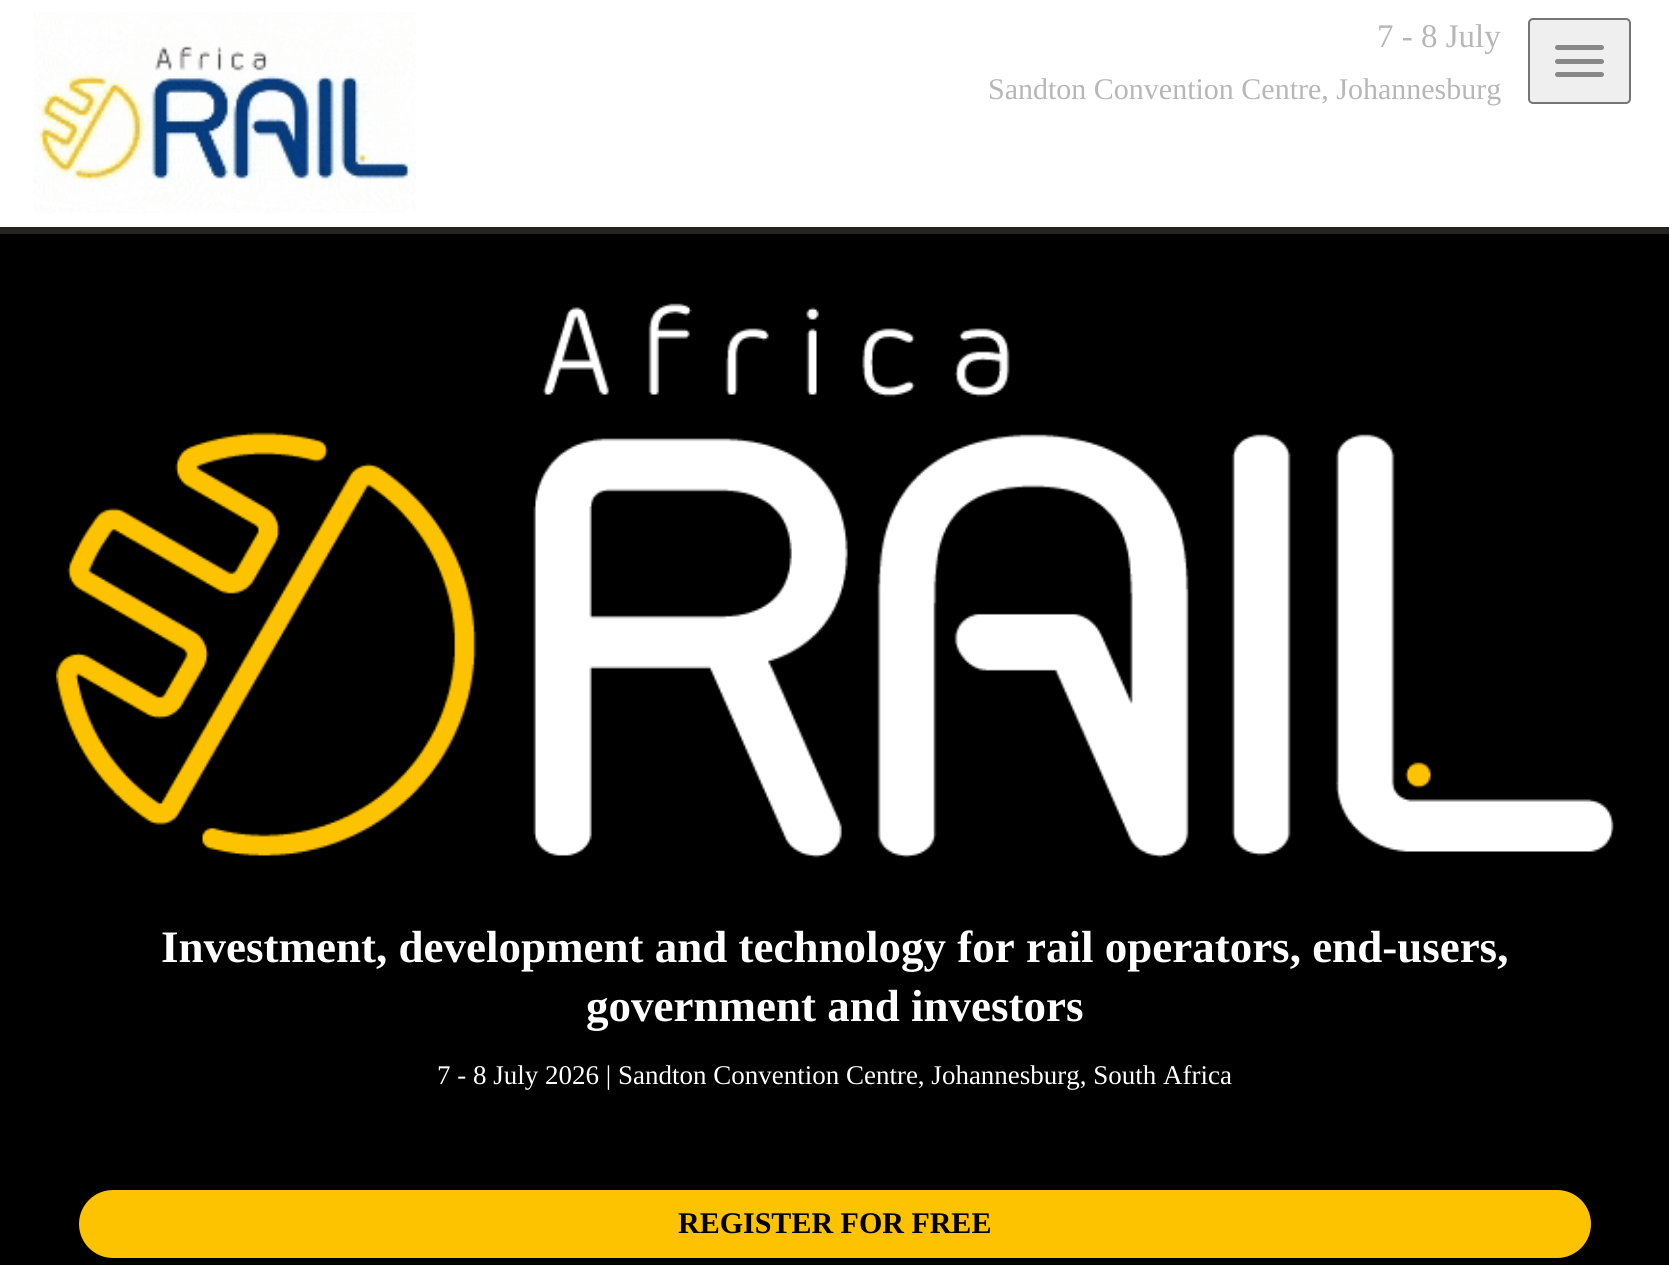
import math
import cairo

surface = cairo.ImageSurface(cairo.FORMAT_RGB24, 1669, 1265)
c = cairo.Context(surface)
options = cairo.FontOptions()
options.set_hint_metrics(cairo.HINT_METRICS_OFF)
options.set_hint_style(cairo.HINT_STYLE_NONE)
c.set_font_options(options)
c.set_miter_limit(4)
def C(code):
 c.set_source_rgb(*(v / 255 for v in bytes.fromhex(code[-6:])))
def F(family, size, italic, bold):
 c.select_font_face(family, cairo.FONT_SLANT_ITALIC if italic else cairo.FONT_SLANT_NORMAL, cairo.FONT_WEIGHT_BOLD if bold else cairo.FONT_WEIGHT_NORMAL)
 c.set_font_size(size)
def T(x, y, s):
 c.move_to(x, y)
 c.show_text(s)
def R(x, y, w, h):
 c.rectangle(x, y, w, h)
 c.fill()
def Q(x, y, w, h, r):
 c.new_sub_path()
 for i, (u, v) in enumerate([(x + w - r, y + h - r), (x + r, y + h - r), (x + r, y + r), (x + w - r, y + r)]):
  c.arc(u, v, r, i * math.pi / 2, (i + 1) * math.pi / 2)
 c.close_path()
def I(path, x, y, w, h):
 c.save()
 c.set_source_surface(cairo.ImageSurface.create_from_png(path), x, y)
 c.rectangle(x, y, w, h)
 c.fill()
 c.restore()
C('000000')
c.paint()
C('ffffff')
R(0,0,1669,227)
C('262323')
R(0,227,1669,7)
I('1.png',33,12,383,201)
C('efefef')
Q(1529,19,101,84,4)
c.fill_preserve()
C('767676')
c.stroke()
C('888888')
Q(1555,45,49,5,2.5)
c.fill()
Q(1555,59,49,5,2.5)
c.fill()
Q(1555,72,49,5,2.5)
c.fill()
F('Liberation Serif',33,0,0)
C('b7b7b7')
T(1377,47,'7 - 8 July')
F('Liberation Serif',30,0,0)
T(988,99,'Sandton Convention Centre, Johannesburg')
I('2.png',56,303,1558,555)
F('Liberation Serif',45,0,1)
C('ffffff')
T(161,962,'Investment, development and technology for rail operators, end-users,')
T(586,1021,'government and investors')
F('Liberation Serif',27,0,0)
T(437,1084,'7 - 8 July 2026 | Sandton Convention Centre, Johannesburg, South Africa')
C('fdc300')
Q(79,1190,1512,68,34)
c.fill()
F('Liberation Serif',30,0,1)
C('000000')
T(678,1233,'REGISTER FOR FREE')
surface.write_to_png('o.png')
